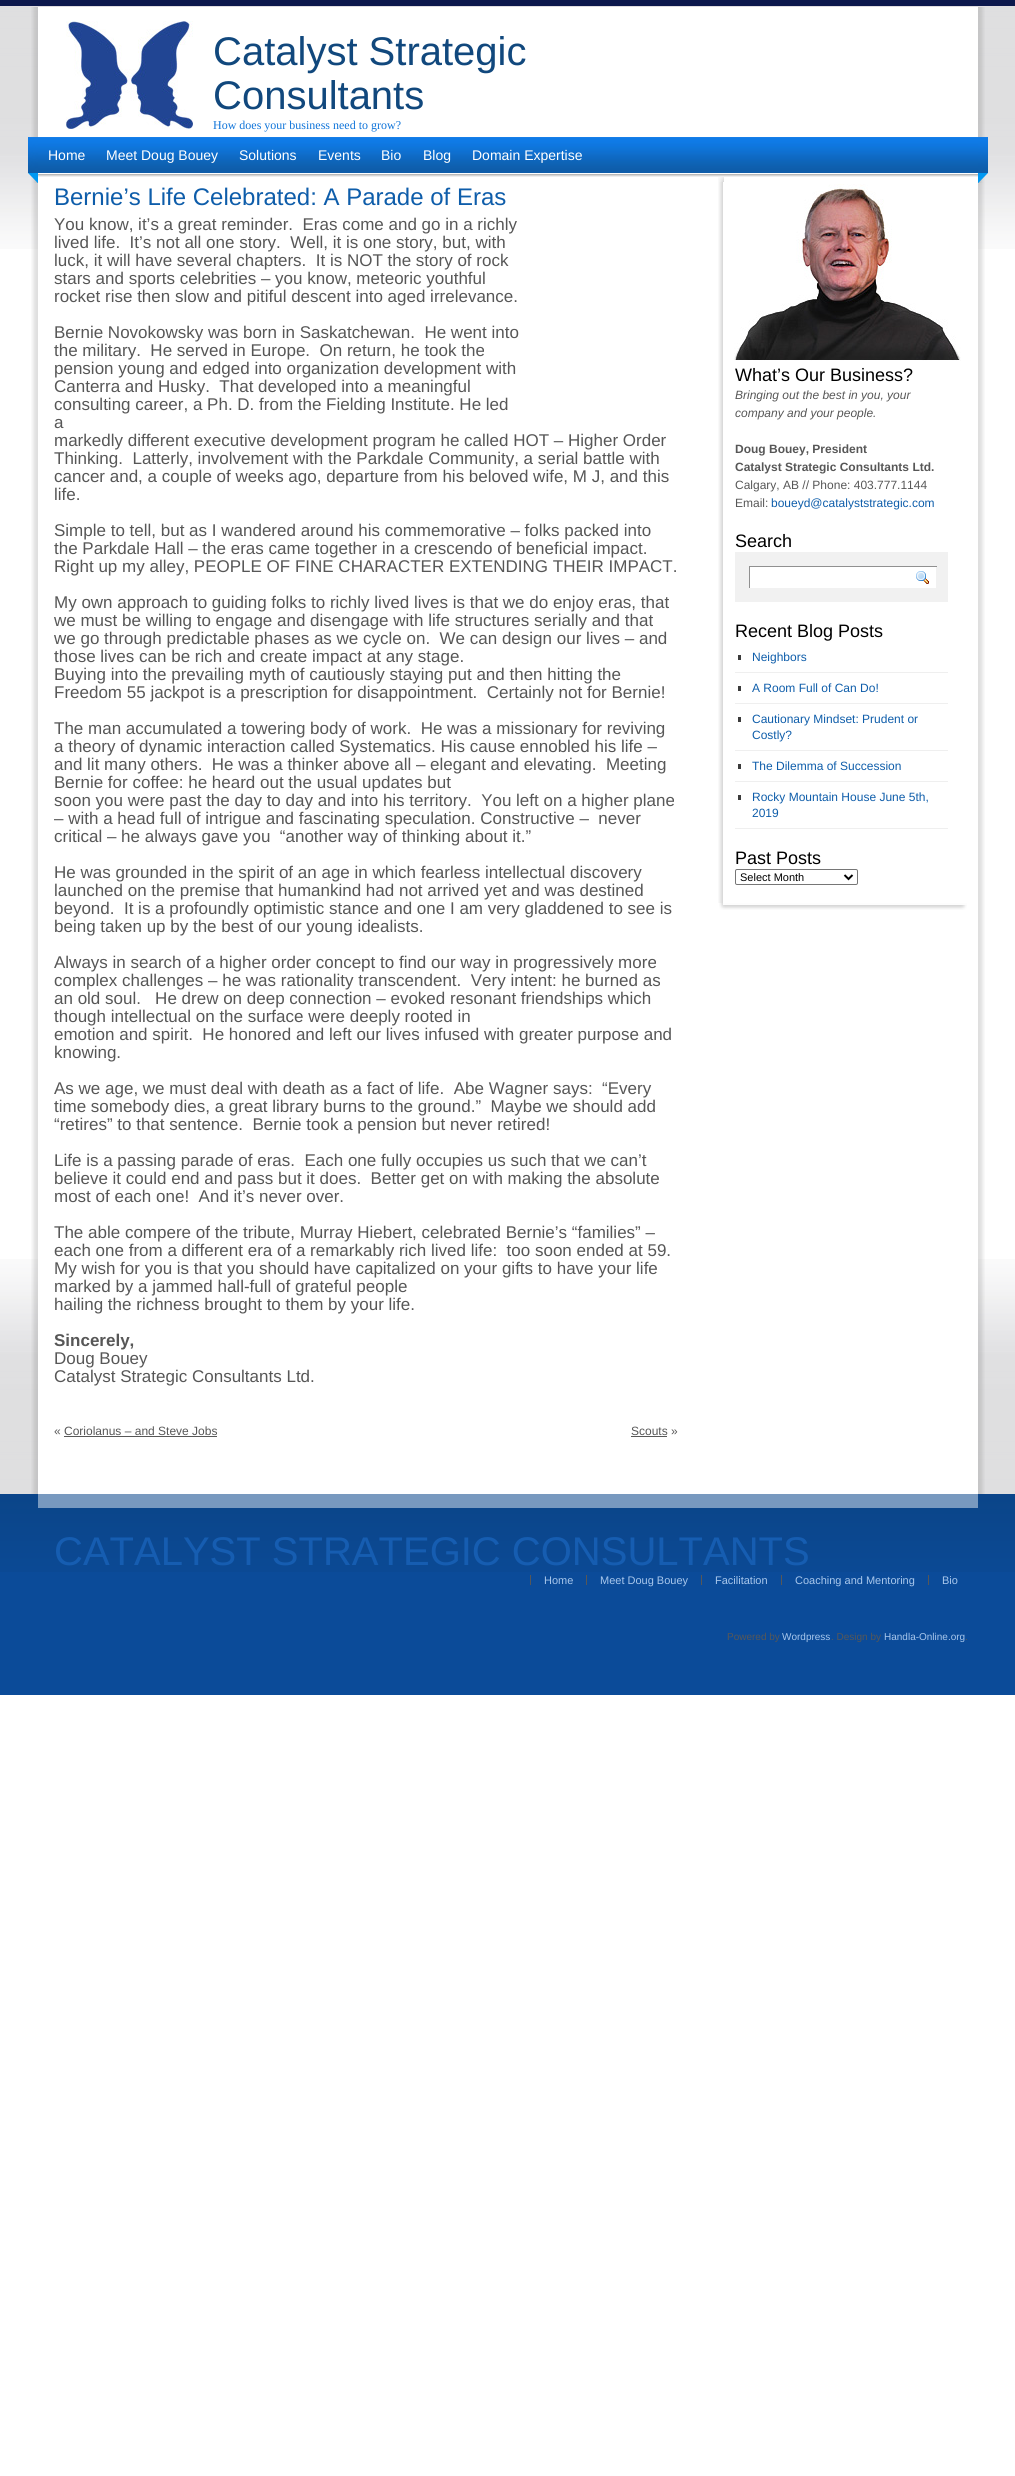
import math
import cairo

surface = cairo.ImageSurface(cairo.FORMAT_RGB24, 1015, 2476)
c = cairo.Context(surface)
options = cairo.FontOptions()
options.set_hint_metrics(cairo.HINT_METRICS_OFF)
options.set_hint_style(cairo.HINT_STYLE_NONE)
c.set_font_options(options)
c.set_miter_limit(4)
def C(code):
 c.set_source_rgb(*(v / 255 for v in bytes.fromhex(code[-6:])))
def F(family, size, italic, bold):
 c.select_font_face(family, cairo.FONT_SLANT_ITALIC if italic else cairo.FONT_SLANT_NORMAL, cairo.FONT_WEIGHT_BOLD if bold else cairo.FONT_WEIGHT_NORMAL)
 c.set_font_size(size)
def T(x, y, s):
 c.move_to(x, y)
 c.show_text(s)
def R(x, y, w, h):
 c.rectangle(x, y, w, h)
 c.fill()
def Q(x, y, w, h, r):
 c.new_sub_path()
 for i, (u, v) in enumerate([(x + w - r, y + h - r), (x + r, y + h - r), (x + r, y + r), (x + w - r, y + r)]):
  c.arc(u, v, r, i * math.pi / 2, (i + 1) * math.pi / 2)
 c.close_path()
def I(path, x, y, w, h):
 c.save()
 c.set_source_surface(cairo.ImageSurface.create_from_png(path), x, y)
 c.rectangle(x, y, w, h)
 c.fill()
 c.restore()
C('ffffff')
c.paint()
I('1.png',0,0,1015,249)
I('2.png',0,1259,1015,235)
I('3.png',31,7,954,1487)
I('4.png',66,21,127,108)
F('Liberation Sans',40,0,0)
C('11487d')
T(213,65,'Catalyst Strategic')
T(213,109,'Consultants')
F('Liberation Serif',12,0,0)
C('0f74d9')
T(213,129,'How does your business need to grow?')
I('5.png',28,137,10,46)
I('6.png',38,137,940,40)
F('Liberation Sans',14,0,0)
C('ffffff')
T(48,160,'Home')
T(106,160,'Meet Doug Bouey')
T(239,160,'Solutions')
T(318,160,'Events')
T(381,160,'Bio')
T(423,160,'Blog')
T(472,160,'Domain Expertise')
I('7.png',978,137,10,46)
F('Liberation Sans',24,0,0)
C('0e5daa')
T(54,205,'Bernie’s Life Celebrated: A Parade of Eras')
F('Liberation Sans',17,0,0)
C('575757')
T(54,230,'You know, it’s a great reminder.  Eras come and go in a richly')
T(54,248,'lived life.  It’s not all one story.  Well, it is one story, but, with')
T(54,266,'luck, it will have several chapters.  It is NOT the story of rock')
T(54,284,'stars and sports celebrities – you know, meteoric youthful')
T(54,302,'rocket rise then slow and pitiful descent into aged irrelevance.')
T(54,338,'Bernie Novokowsky was born in Saskatchewan.  He went into')
T(54,356,'the military.  He served in Europe.  On return, he took the')
T(54,374,'pension young and edged into organization development with')
T(54,392,'Canterra and Husky.  That developed into a meaningful')
T(54,410,'consulting career, a Ph. D. from the Fielding Institute. He led')
T(54,428,'a')
T(54,446,'markedly different executive development program he called HOT – Higher Order')
T(54,464,'Thinking.  Latterly, involvement with the Parkdale Community, a serial battle with')
T(54,482,'cancer and, a couple of weeks ago, departure from his beloved wife, M J, and this')
T(54,500,'life.')
T(54,536,'Simple to tell, but as I wandered around his commemorative – folks packed into')
T(54,554,'the Parkdale Hall – the eras came together in a crescendo of beneficial impact.')
T(54,572,'Right up my alley, PEOPLE OF FINE CHARACTER EXTENDING THEIR IMPACT.')
T(54,608,'My own approach to guiding folks to richly lived lives is that we do enjoy eras, that')
T(54,626,'we must be willing to engage and disengage with life structures serially and that')
T(54,644,'we go through predictable phases as we cycle on.  We can design our lives – and')
T(54,662,'those lives can be rich and create impact at any stage.')
T(54,680,'Buying into the prevailing myth of cautiously staying put and then hitting the')
T(54,698,'Freedom 55 jackpot is a prescription for disappointment.  Certainly not for Bernie!')
T(54,734,'The man accumulated a towering body of work.  He was a missionary for reviving')
T(54,752,'a theory of dynamic interaction called Systematics. His cause ennobled his life –')
T(54,770,'and lit many others.  He was a thinker above all – elegant and elevating.  Meeting')
T(54,788,'Bernie for coffee: he heard out the usual updates but')
T(54,806,'soon you were past the day to day and into his territory.  You left on a higher plane')
T(54,824,'– with a head full of intrigue and fascinating speculation. Constructive –  never')
T(54,842,'critical – he always gave you  “another way of thinking about it.”')
T(54,878,'He was grounded in the spirit of an age in which fearless intellectual discovery')
T(54,896,'launched on the premise that humankind had not arrived yet and was destined')
T(54,914,'beyond.  It is a profoundly optimistic stance and one I am very gladdened to see is')
T(54,932,'being taken up by the best of our young idealists.')
T(54,968,'Always in search of a higher order concept to find our way in progressively more')
T(54,986,'complex challenges – he was rationality transcendent.  Very intent: he burned as')
T(54,1004,'an old soul.   He drew on deep connection – evoked resonant friendships which')
T(54,1022,'though intellectual on the surface were deeply rooted in')
T(54,1040,'emotion and spirit.  He honored and left our lives infused with greater purpose and')
T(54,1058,'knowing.')
T(54,1094,'As we age, we must deal with death as a fact of life.  Abe Wagner says:  “Every')
T(54,1112,'time somebody dies, a great library burns to the ground.”  Maybe we should add')
T(54,1130,'“retires” to that sentence.  Bernie took a pension but never retired!')
T(54,1166,'Life is a passing parade of eras.  Each one fully occupies us such that we can’t')
T(54,1184,'believe it could end and pass but it does.  Better get on with making the absolute')
T(54,1202,'most of each one!  And it’s never over.')
T(54,1238,'The able compere of the tribute, Murray Hiebert, celebrated Bernie’s “families” –')
T(54,1256,'each one from a different era of a remarkably rich lived life:  too soon ended at 59.')
T(54,1274,'My wish for you is that you should have capitalized on your gifts to have your life')
T(54,1292,'marked by a jammed hall-full of grateful people')
T(54,1310,'hailing the richness brought to them by your life.')
F('Liberation Sans',17,0,1)
T(54,1346,'Sincerely,')
F('Liberation Sans',17,0,0)
T(54,1364,'Doug Bouey')
T(54,1382,'Catalyst Strategic Consultants Ltd.')
F('Liberation Sans',12,0,0)
T(54,1435,'« Coriolanus – and Steve Jobs')
R(64,1436,153,1)
T(631,1435,'Scouts »')
R(631,1436,36,1)
I('8.png',718,177,6,5)
I('9.png',734,184,227,177)
I('10.png',718,182,5,721)
F('Liberation Sans',18,0,0)
C('000000')
T(735,381,'What’s Our Business?')
F('Liberation Sans',12,1,0)
C('575757')
T(735,399,'Bringing out the best in you, your')
T(735,417,'company and your people.')
F('Liberation Sans',12,0,1)
T(735,453,'Doug Bouey, President')
T(735,471,'Catalyst Strategic Consultants Ltd.')
F('Liberation Sans',12,0,0)
T(735,489,'Calgary, AB // Phone: 403.777.1144')
T(735,507,'Email:')
C('0e5daa')
T(771,507,'boueyd@catalyststrategic.com')
F('Liberation Sans',18,0,0)
C('000000')
T(735,547,'Search')
C('f1f1f1')
R(735,552,213,50)
C('909090')
R(749,566,188,1)
C('ffffff')
R(750,567,166,21)
C('909090')
R(749,567,1,21)
I('11.png',916,567,20,21)
C('000000')
T(735,637,'Recent Blog Posts')
C('3b3b3b')
R(738,655,3,5)
C('efefef')
R(735,672,213,1)
F('Liberation Sans',12,0,0)
C('0e5daa')
T(752,661,'Neighbors')
C('3b3b3b')
R(738,686,3,5)
C('efefef')
R(735,703,213,1)
C('0e5daa')
T(752,692,'A Room Full of Can Do!')
C('3b3b3b')
R(738,717,3,5)
C('efefef')
R(735,750,213,1)
C('0e5daa')
T(752,723,'Cautionary Mindset: Prudent or')
T(752,739,'Costly?')
C('3b3b3b')
R(738,764,3,5)
C('efefef')
R(735,781,213,1)
C('0e5daa')
T(752,770,'The Dilemma of Succession')
C('3b3b3b')
R(738,795,3,5)
C('efefef')
R(735,828,213,1)
C('0e5daa')
T(752,801,'Rocky Mountain House June 5th,')
T(752,817,'2019')
F('Liberation Sans',18,0,0)
C('000000')
T(735,864,'Past Posts')
Q(735.5,869.5,122,15,1.5)
C('767676')
c.set_line_width(1)
c.stroke()
c.new_path()
c.move_to(844.5,875)
c.line_to(848.5,879)
c.line_to(852.5,875)
C('000000')
c.set_line_width(2)
c.stroke()
F('Liberation Sans',11,0,0)
T(740,881,'Select Month')
I('12.png',719,903,248,7)
C('0b4b99')
R(0,1572,1015,123)
I('13.png',0,1494,1015,78)
C('7899bf')
R(38,1494,940,14)
F('Liberation Sans',40,0,0)
C('165db1')
T(54,1565,'CATALYST STRATEGIC CONSULTANTS')
F('Liberation Sans',11,0,0)
C('a8c7ec')
T(544,1584,'Home')
C('575757')
R(530,1575,1,10)
C('a8c7ec')
T(600,1584,'Meet Doug Bouey')
C('575757')
R(586,1575,1,10)
C('a8c7ec')
T(715,1584,'Facilitation')
C('575757')
R(701,1575,1,10)
C('a8c7ec')
T(795,1584,'Coaching and Mentoring')
C('575757')
R(781,1575,1,10)
C('a8c7ec')
T(942,1584,'Bio')
C('575757')
R(928,1575,1,10)
F('Liberation Sans',10,0,0)
T(727,1640,'Powered by')
C('a8c7ec')
T(782,1640,'Wordpress')
C('575757')
T(831,1640,'. Design by')
C('a8c7ec')
T(884,1640,'Handla-Online.org')
C('575757')
T(965,1640,'.')
surface.write_to_png('o.png')
